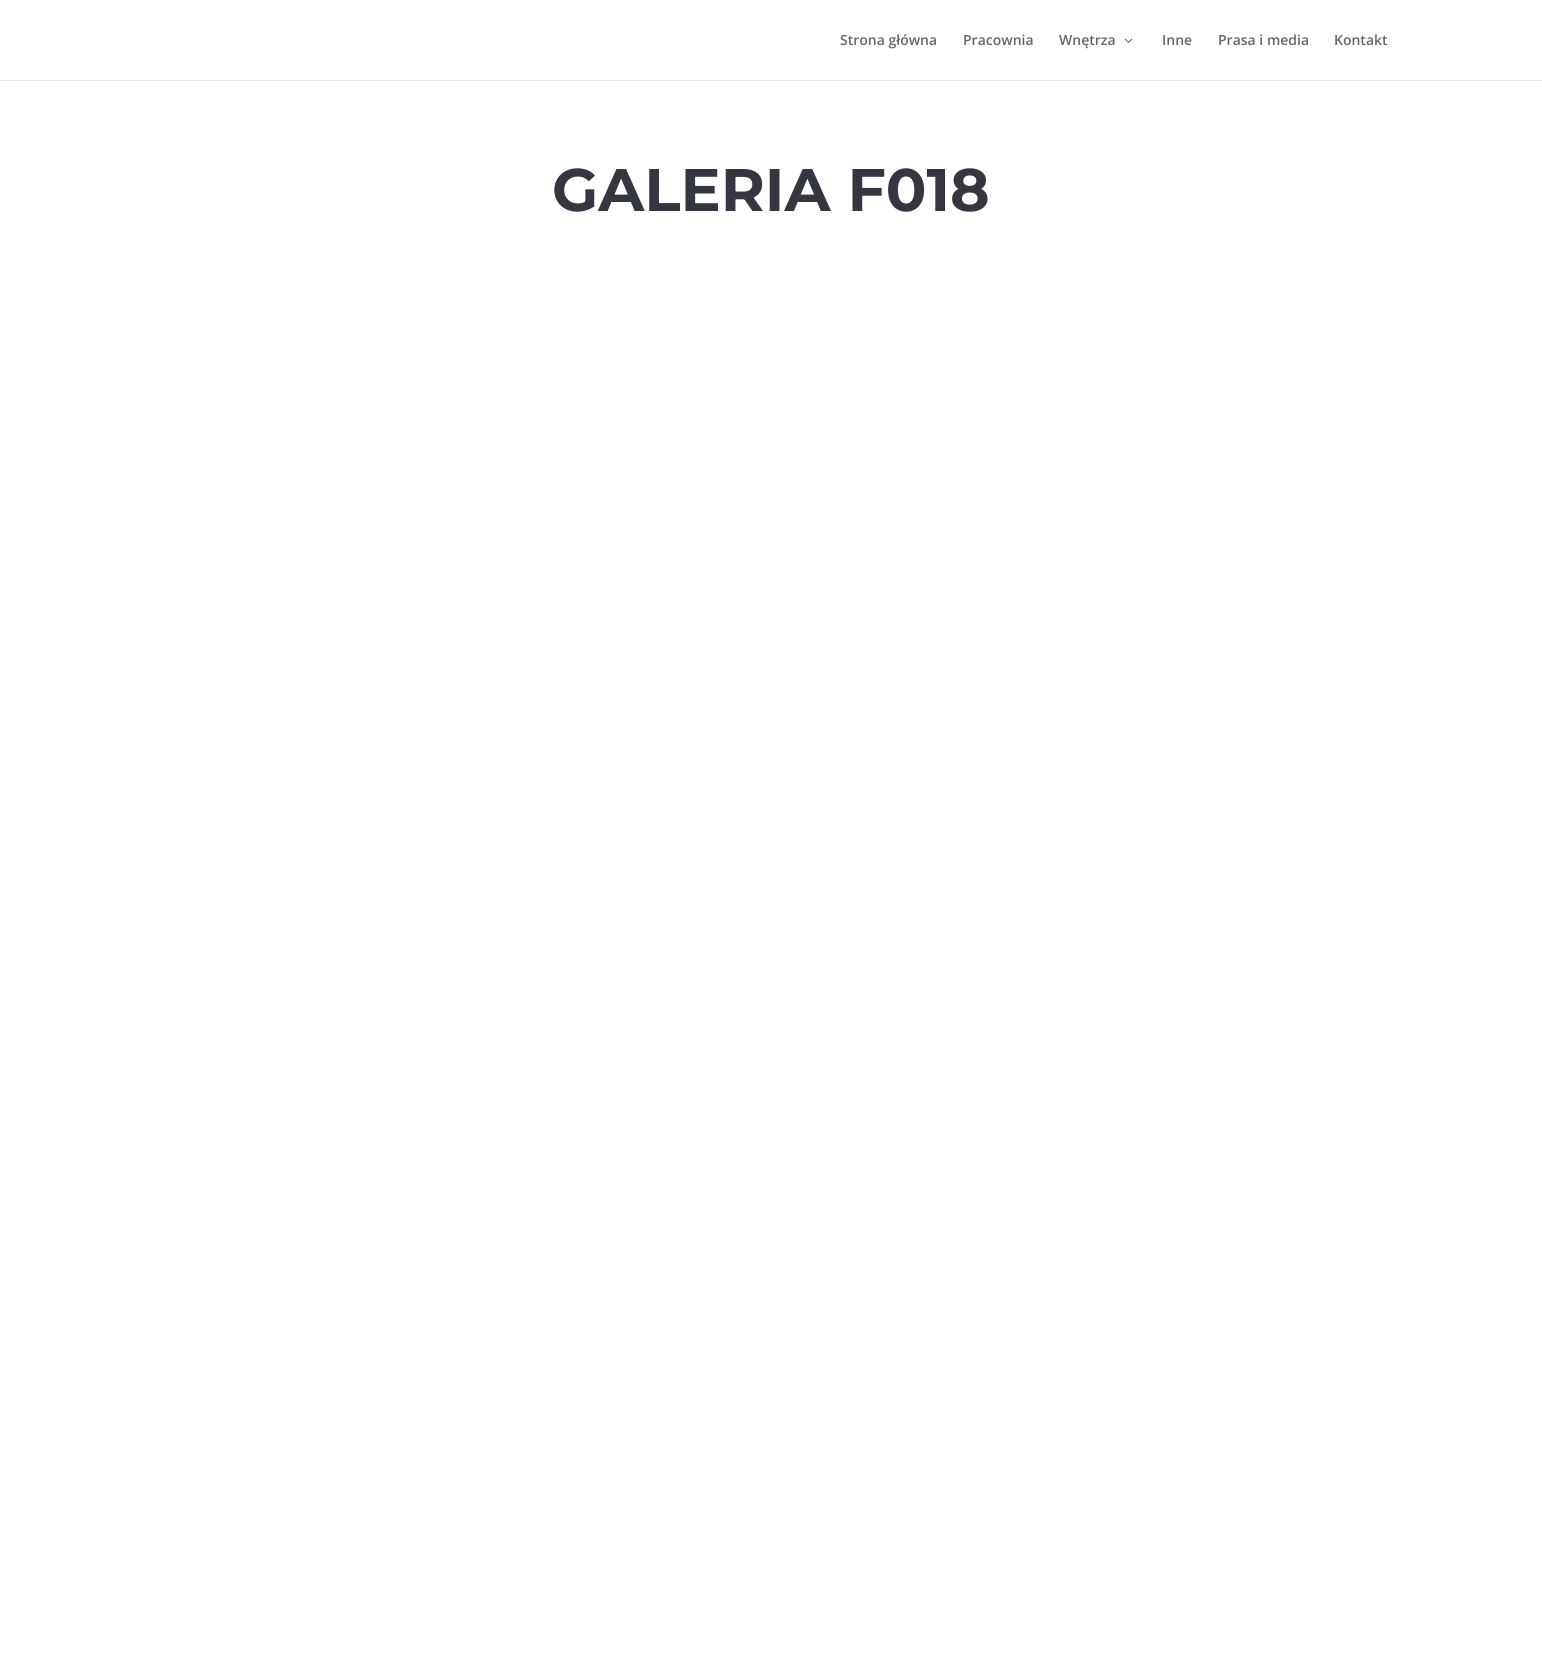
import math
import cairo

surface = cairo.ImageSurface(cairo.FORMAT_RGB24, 1542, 1671)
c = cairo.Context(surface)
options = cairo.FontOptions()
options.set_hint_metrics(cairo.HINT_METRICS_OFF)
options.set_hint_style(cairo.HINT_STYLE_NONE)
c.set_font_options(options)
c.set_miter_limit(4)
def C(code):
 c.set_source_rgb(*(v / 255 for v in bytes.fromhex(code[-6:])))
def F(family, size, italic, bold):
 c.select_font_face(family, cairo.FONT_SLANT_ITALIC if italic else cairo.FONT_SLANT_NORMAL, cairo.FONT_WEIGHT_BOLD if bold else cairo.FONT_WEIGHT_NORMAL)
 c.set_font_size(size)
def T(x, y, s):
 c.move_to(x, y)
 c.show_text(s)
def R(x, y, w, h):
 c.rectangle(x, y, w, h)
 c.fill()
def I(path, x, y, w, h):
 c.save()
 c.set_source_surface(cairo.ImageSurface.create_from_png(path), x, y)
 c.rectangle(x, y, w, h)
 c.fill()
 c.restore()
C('ffffff')
c.paint()
C('e6e6e6')
R(0,80,1542,1)
F('Open Sans SemiBold',14,0,0)
C('666666')
T(840,45,'Strona główna')
T(963,45,'Pracownia')
T(1059,45,'Wnętrza')
I('1.png',1124,38,9,5)
T(1162,45,'Inne')
T(1218,45,'Prasa i media')
T(1334,45,'Kontakt')
F('Montserrat Thin',60,0,0)
C('353740')
T(552,211,'GALERIA F018')
surface.write_to_png('o.png')
